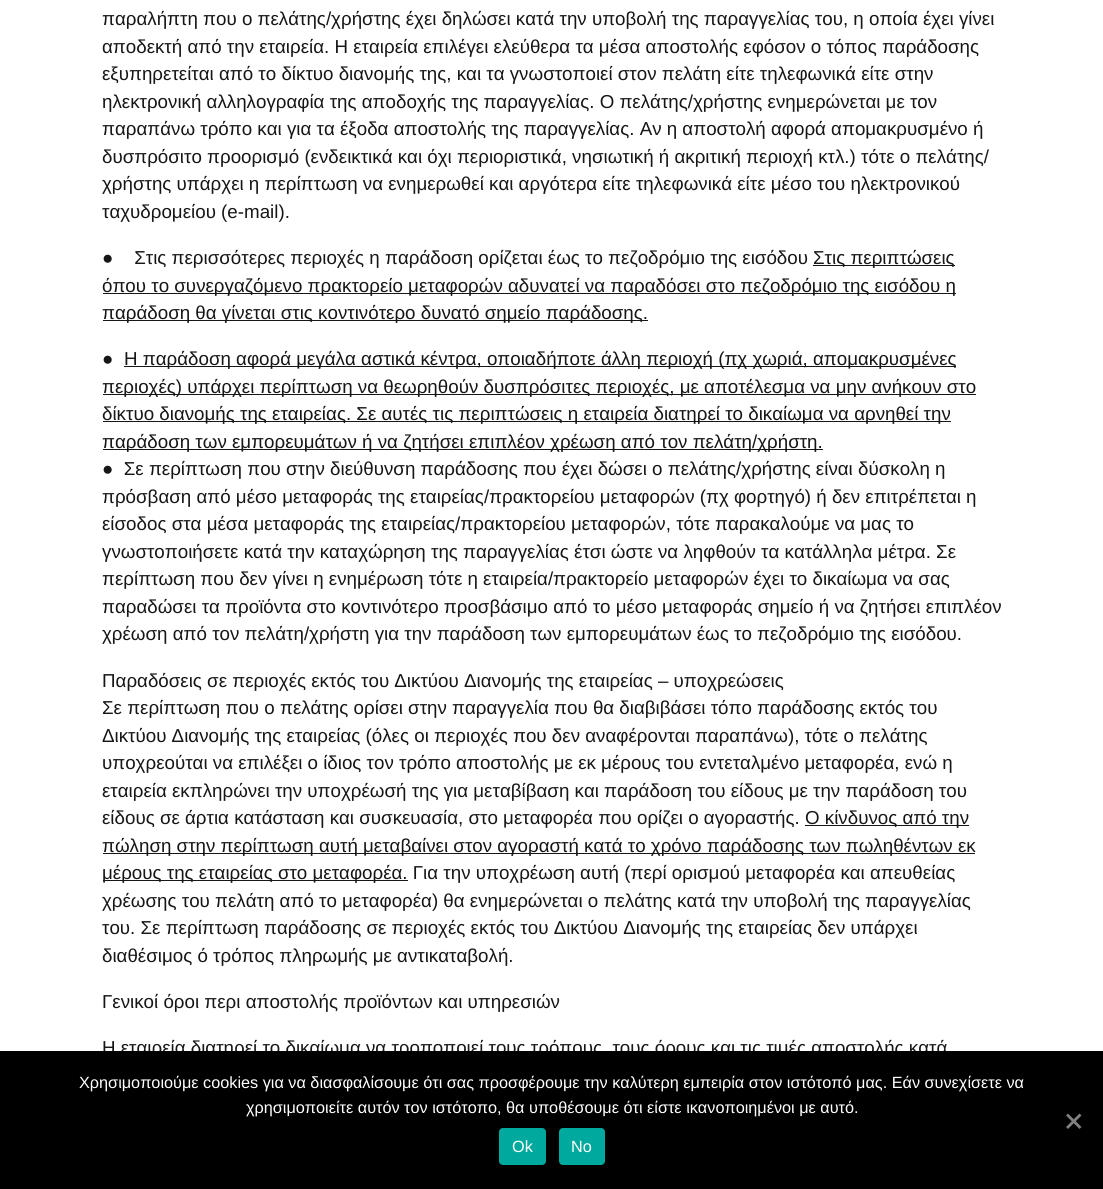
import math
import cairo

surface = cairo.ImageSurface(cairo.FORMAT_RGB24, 1103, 1189)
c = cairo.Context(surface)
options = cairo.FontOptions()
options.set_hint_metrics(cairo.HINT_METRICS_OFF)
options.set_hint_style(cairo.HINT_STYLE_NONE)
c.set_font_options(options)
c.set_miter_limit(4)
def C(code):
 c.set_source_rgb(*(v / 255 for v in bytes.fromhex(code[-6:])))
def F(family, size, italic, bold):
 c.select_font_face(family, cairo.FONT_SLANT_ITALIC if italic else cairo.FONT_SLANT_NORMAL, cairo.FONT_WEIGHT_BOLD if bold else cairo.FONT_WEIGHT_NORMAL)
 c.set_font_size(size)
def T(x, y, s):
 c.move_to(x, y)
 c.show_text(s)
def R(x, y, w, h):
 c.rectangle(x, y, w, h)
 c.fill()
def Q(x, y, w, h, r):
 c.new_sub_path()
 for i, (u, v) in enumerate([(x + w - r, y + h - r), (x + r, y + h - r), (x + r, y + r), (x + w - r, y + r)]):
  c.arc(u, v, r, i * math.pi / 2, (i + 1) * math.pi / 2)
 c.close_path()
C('ffffff')
c.paint()
F('Liberation Sans',18.75,0,0)
C('161616')
T(102,25,'παραλήπτη που ο πελάτης/χρήστης έχει δηλώσει κατά την υποβολή της παραγγελίας του, η οποία έχει γίνει')
T(102,53,'αποδεκτή από την εταιρεία. Η εταιρεία επιλέγει ελεύθερα τα μέσα αποστολής εφόσον ο τόπος παράδοσης')
T(102,80,'εξυπηρετείται από το δίκτυο διανομής της, και τα γνωστοποιεί στον πελάτη είτε τηλεφωνικά είτε στην')
T(102,108,'ηλεκτρονική αλληλογραφία της αποδοχής της παραγγελίας. Ο πελάτης/χρήστης ενημερώνεται με τον')
T(102,135,'παραπάνω τρόπο και για τα έξοδα αποστολής της παραγγελίας. Αν η αποστολή αφορά απομακρυσμένο ή')
T(102,163,'δυσπρόσιτο προορισμό (ενδεικτικά και όχι περιοριστικά, νησιωτική ή ακριτική περιοχή κτλ.) τότε ο πελάτης/')
T(102,190,'χρήστης υπάρχει η περίπτωση να ενημερωθεί και αργότερα είτε τηλεφωνικά είτε μέσο του ηλεκτρονικού')
T(102,218,'ταχυδρομείου (e-mail).')
T(102,264,'●    Στις περισσότερες περιοχές η παράδοση ορίζεται έως το πεζοδρόμιο της εισόδου')
R(813,265,142,1)
T(813,264,'Στις περιπτώσεις')
R(103,293,853,1)
T(102,292,'όπου το συνεργαζόμενο πρακτορείο μεταφορών αδυνατεί να παραδόσει στο πεζοδρόμιο της εισόδου η')
R(103,320,545,1)
T(102,319,'παράδοση θα γίνεται στις κοντινότερο δυνατό σημείο παράδοσης.')
T(102,365,'●')
R(124,366,832,1)
T(124,365,'Η παράδοση αφορά μεγάλα αστικά κέντρα, οποιαδήποτε άλλη περιοχή (πχ χωριά, απομακρυσμένες')
R(103,394,873,1)
T(102,393,'περιοχές) υπάρχει περίπτωση να θεωρηθούν δυσπρόσιτες περιοχές, με αποτέλεσμα να μην ανήκουν στο')
R(103,421,848,1)
T(102,420,'δίκτυο διανομής της εταιρείας. Σε αυτές τις περιπτώσεις η εταιρεία διατηρεί το δικαίωμα να αρνηθεί την')
R(103,449,720,1)
T(102,448,'παράδοση των εμπορευμάτων ή να ζητήσει επιπλέον χρέωση από τον πελάτη/χρήστη.')
T(102,475,'●  Σε περίπτωση που στην διεύθυνση παράδοσης που έχει δώσει ο πελάτης/χρήστης είναι δύσκολη η')
T(102,503,'πρόσβαση από μέσο μεταφοράς της εταιρείας/πρακτορείου μεταφορών (πχ φορτηγό) ή δεν επιτρέπεται η')
T(102,530,'είσοδος στα μέσα μεταφοράς της εταιρείας/πρακτορείου μεταφορών, τότε παρακαλούμε να μας το')
T(102,558,'γνωστοποιήσετε κατά την καταχώρηση της παραγγελίας έτσι ώστε να ληφθούν τα κατάλληλα μέτρα. Σε')
T(102,585,'περίπτωση που δεν γίνει η ενημέρωση τότε η εταιρεία/πρακτορείο μεταφορών έχει το δικαίωμα να σας')
T(102,613,'παραδώσει τα προϊόντα στο κοντινότερο προσβάσιμο από το μέσο μεταφοράς σημείο ή να ζητήσει επιπλέον')
T(102,640,'χρέωση από τον πελάτη/χρήστη για την παράδοση των εμπορευμάτων έως το πεζοδρόμιο της εισόδου.')
T(102,687,'Παραδόσεις σε περιοχές εκτός του Δικτύου Διανομής της εταιρείας – υποχρεώσεις')
T(102,714,'Σε περίπτωση που ο πελάτης ορίσει στην παραγγελία που θα διαβιβάσει τόπο παράδοσης εκτός του')
T(102,742,'Δικτύου Διανομής της εταιρείας (όλες οι περιοχές που δεν αναφέρονται παραπάνω), τότε ο πελάτης')
T(102,769,'υποχρεούται να επιλέξει ο ίδιος τον τρόπο αποστολής με εκ μέρους του εντεταλμένο μεταφορέα, ενώ η')
T(102,797,'εταιρεία εκπληρώνει την υποχρέωσή της για μεταβίβαση και παράδοση του είδους με την παράδοση του')
T(102,824,'είδους σε άρτια κατάσταση και συσκευασία, στο μεταφορέα που ορίζει ο αγοραστής.')
R(805,825,164,1)
T(805,824,'Ο κίνδυνος από την')
R(103,853,872,1)
T(102,852,'πώληση στην περίπτωση αυτή μεταβαίνει στον αγοραστή κατά το χρόνο παράδοσης των πωληθέντων εκ')
R(103,880,305,1)
T(102,879,'μέρους της εταιρείας στο μεταφορέα. Για την υποχρέωση αυτή (περί ορισμού μεταφορέα και απευθείας')
T(102,907,'χρέωσης του πελάτη από το μεταφορέα) θα ενημερώνεται ο πελάτης κατά την υποβολή της παραγγελίας')
T(102,934,'του. Σε περίπτωση παράδοσης σε περιοχές εκτός του Δικτύου Διανομής της εταιρείας δεν υπάρχει')
T(102,962,'διαθέσιμος ό τρόπος πληρωμής με αντικαταβολή.')
T(102,1008,'Γενικοί όροι περι αποστολής προϊόντων και υπηρεσιών')
T(102,1054,'Η εταιρεία διατηρεί το δικαίωμα να τροποποιεί τους τρόπους, τους όρους και τις τιμές αποστολής κατά')
C('000000')
R(0,1051,1103,138)
F('Liberation Sans',16.25,0,0)
C('ffffff')
T(79,1088,'Χρησιμοποιούμε cookies για να διασφαλίσουμε ότι σας προσφέρουμε την καλύτερη εμπειρία στον ιστότοπό μας. Εάν συνεχίσετε να')
T(246,1113,'χρησιμοποιείτε αυτόν τον ιστότοπο, θα υποθέσουμε ότι είστε ικανοποιημένοι με αυτό.')
C('808080')
c.new_path()
c.move_to(1079.5,1113.5)
c.line_to(1081.5,1115.5)
c.line_to(1068,1129)
c.line_to(1066,1127)
c.close_path()
c.fill()
c.new_path()
c.move_to(1066,1115.5)
c.line_to(1068,1113.5)
c.line_to(1081.5,1127)
c.line_to(1079.5,1129)
c.close_path()
c.fill()
C('00a99d')
Q(499,1128,47,37,4)
c.fill()
C('ffffff')
T(512,1152,'Ok')
C('00a99d')
Q(559,1128,46,37,4)
c.fill()
C('ffffff')
T(571,1152,'No')
surface.write_to_png('o.png')
